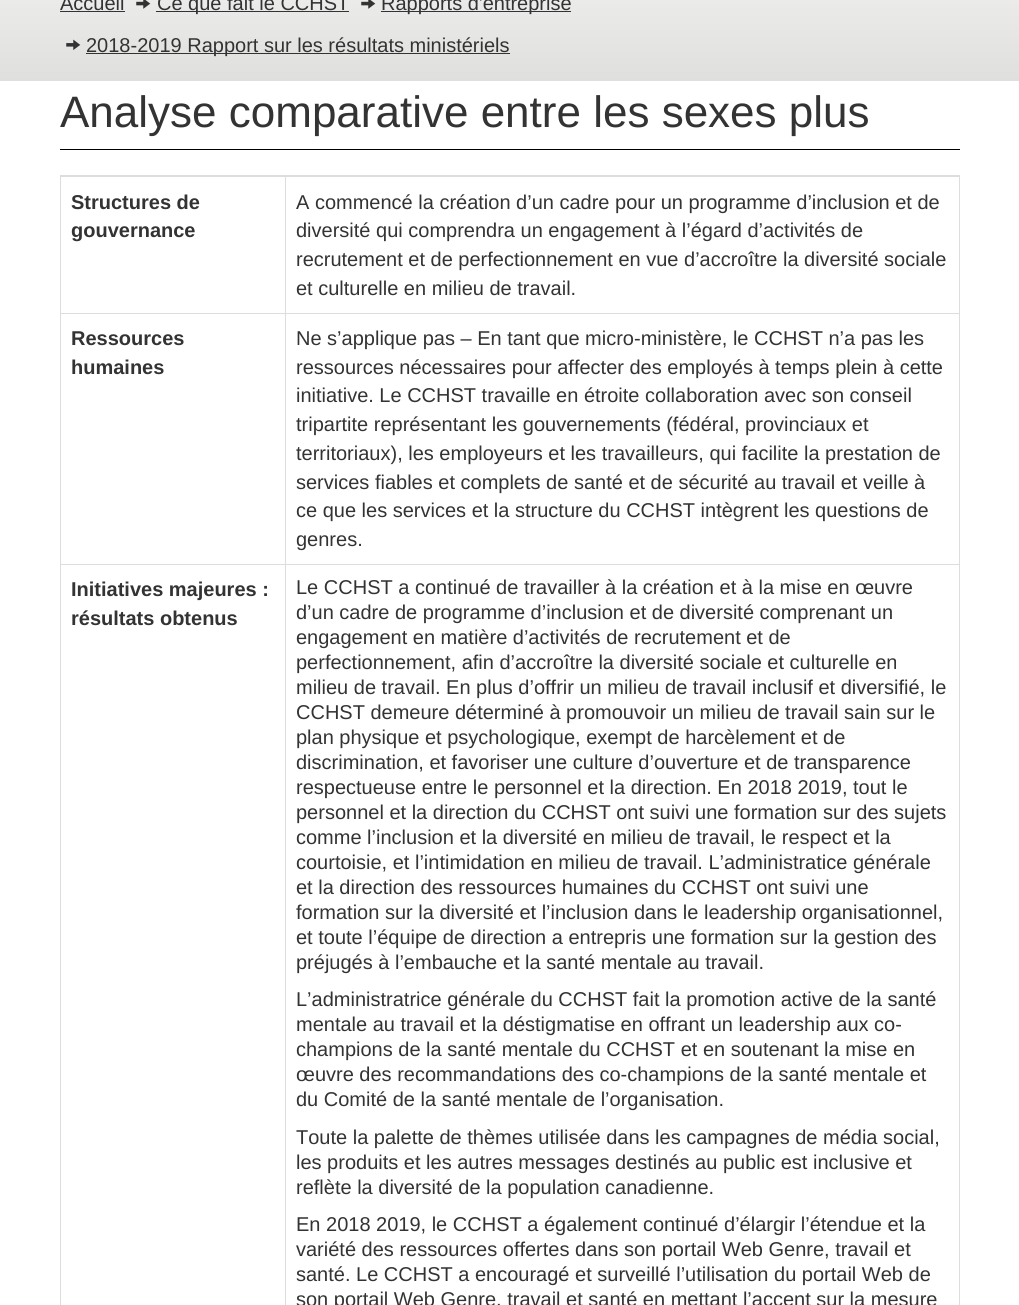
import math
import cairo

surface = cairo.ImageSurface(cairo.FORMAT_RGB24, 1019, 1305)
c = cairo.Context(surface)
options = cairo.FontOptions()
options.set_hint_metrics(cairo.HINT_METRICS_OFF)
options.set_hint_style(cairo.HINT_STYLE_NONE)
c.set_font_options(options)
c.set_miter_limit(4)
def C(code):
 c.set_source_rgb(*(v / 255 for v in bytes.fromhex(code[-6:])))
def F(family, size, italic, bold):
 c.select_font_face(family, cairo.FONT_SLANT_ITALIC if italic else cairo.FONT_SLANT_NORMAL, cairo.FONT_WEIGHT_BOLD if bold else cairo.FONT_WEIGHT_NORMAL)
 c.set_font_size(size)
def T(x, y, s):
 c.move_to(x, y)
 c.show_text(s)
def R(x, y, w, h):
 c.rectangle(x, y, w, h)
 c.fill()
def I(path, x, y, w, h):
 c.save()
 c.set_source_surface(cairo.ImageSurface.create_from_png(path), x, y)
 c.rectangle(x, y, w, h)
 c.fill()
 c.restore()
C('ffffff')
c.paint()
gradient = cairo.LinearGradient(510,-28,510,81)
gradient.add_color_stop_rgba(0,0.941,0.937,0.937,1)
gradient.add_color_stop_rgba(1,0.875,0.875,0.867,1)
c.set_source(gradient)
R(0,0,1019,81)
F('Liberation Sans',20,0,0)
C('333333')
T(60,10,'Accueil')
R(60,11,65,1)
I('1.png',136,0,15,9)
R(156,11,193,1)
T(157,10,'Ce que fait le CCHST')
I('1.png',361,0,15,9)
R(381,11,190,1)
T(381,10,'Rapports d\'entreprise')
I('2.png',66,39,15,11)
R(86,53,424,1)
T(86,52,'2018-2019 Rapport sur les résultats ministériels')
C('000000')
R(60,149,900,1)
F('Liberation Sans',44,0,0)
C('333333')
T(60,127,'Analyse comparative entre les sexes plus')
C('dddddd')
R(60,175,900,1)
R(959,175,1,1130)
R(60,175,1,1130)
R(285,176,675,1)
R(285,313,675,1)
R(285,564,675,1)
R(285,564,1,741)
R(60,564,226,1)
R(285,313,1,252)
R(60,313,226,1)
R(285,176,1,138)
R(60,176,226,1)
F('Liberation Sans',20,0,1)
C('333333')
T(71,209,'Structures de')
T(71,237,'gouvernance')
F('Liberation Sans',20,0,0)
T(296,209,'A commencé la création d’un cadre pour un programme d’inclusion et de')
T(296,237,'diversité qui comprendra un engagement à l’égard d’activités de')
T(296,266,'recrutement et de perfectionnement en vue d’accroître la diversité sociale')
T(296,295,'et culturelle en milieu de travail.')
F('Liberation Sans',20,0,1)
T(71,345,'Ressources')
T(71,374,'humaines')
F('Liberation Sans',20,0,0)
T(296,345,'Ne s’applique pas – En tant que micro-ministère, le CCHST n’a pas les')
T(296,374,'ressources nécessaires pour affecter des employés à temps plein à cette')
T(296,402,'initiative. Le CCHST travaille en étroite collaboration avec son conseil')
T(296,431,'tripartite représentant les gouvernements (fédéral, provinciaux et')
T(296,460,'territoriaux), les employeurs et les travailleurs, qui facilite la prestation de')
T(296,489,'services fiables et complets de santé et de sécurité au travail et veille à')
T(296,517,'ce que les services et la structure du CCHST intègrent les questions de')
T(296,546,'genres.')
F('Liberation Sans',20,0,1)
T(71,596,'Initiatives majeures :')
T(71,625,'résultats obtenus')
F('Liberation Sans',20,0,0)
T(296,594,'Le CCHST a continué de travailler à la création et à la mise en œuvre')
T(296,619,'d’un cadre de programme d’inclusion et de diversité comprenant un')
T(296,644,'engagement en matière d’activités de recrutement et de')
T(296,669,'perfectionnement, afin d’accroître la diversité sociale et culturelle en')
T(296,694,'milieu de travail. En plus d’offrir un milieu de travail inclusif et diversifié, le')
T(296,719,'CCHST demeure déterminé à promouvoir un milieu de travail sain sur le')
T(296,744,'plan physique et psychologique, exempt de harcèlement et de')
T(296,769,'discrimination, et favoriser une culture d’ouverture et de transparence')
T(296,794,'respectueuse entre le personnel et la direction. En 2018 2019, tout le')
T(296,819,'personnel et la direction du CCHST ont suivi une formation sur des sujets')
T(296,844,'comme l’inclusion et la diversité en milieu de travail, le respect et la')
T(296,869,'courtoisie, et l’intimidation en milieu de travail. L’administratice générale')
T(296,894,'et la direction des ressources humaines du CCHST ont suivi une')
T(296,919,'formation sur la diversité et l’inclusion dans le leadership organisationnel,')
T(296,944,'et toute l’équipe de direction a entrepris une formation sur la gestion des')
T(296,969,'préjugés à l’embauche et la santé mentale au travail.')
T(296,1006,'L’administratrice générale du CCHST fait la promotion active de la santé')
T(296,1031,'mentale au travail et la déstigmatise en offrant un leadership aux co-')
T(296,1056,'champions de la santé mentale du CCHST et en soutenant la mise en')
T(296,1081,'œuvre des recommandations des co-champions de la santé mentale et')
T(296,1106,'du Comité de la santé mentale de l’organisation.')
T(296,1144,'Toute la palette de thèmes utilisée dans les campagnes de média social,')
T(296,1169,'les produits et les autres messages destinés au public est inclusive et')
T(296,1194,'reflète la diversité de la population canadienne.')
T(296,1231,'En 2018 2019, le CCHST a également continué d’élargir l’étendue et la')
T(296,1256,'variété des ressources offertes dans son portail Web Genre, travail et')
T(296,1281,'santé. Le CCHST a encouragé et surveillé l’utilisation du portail Web de')
T(296,1306,'son portail Web Genre, travail et santé en mettant l’accent sur la mesure')
surface.write_to_png('o.png')
